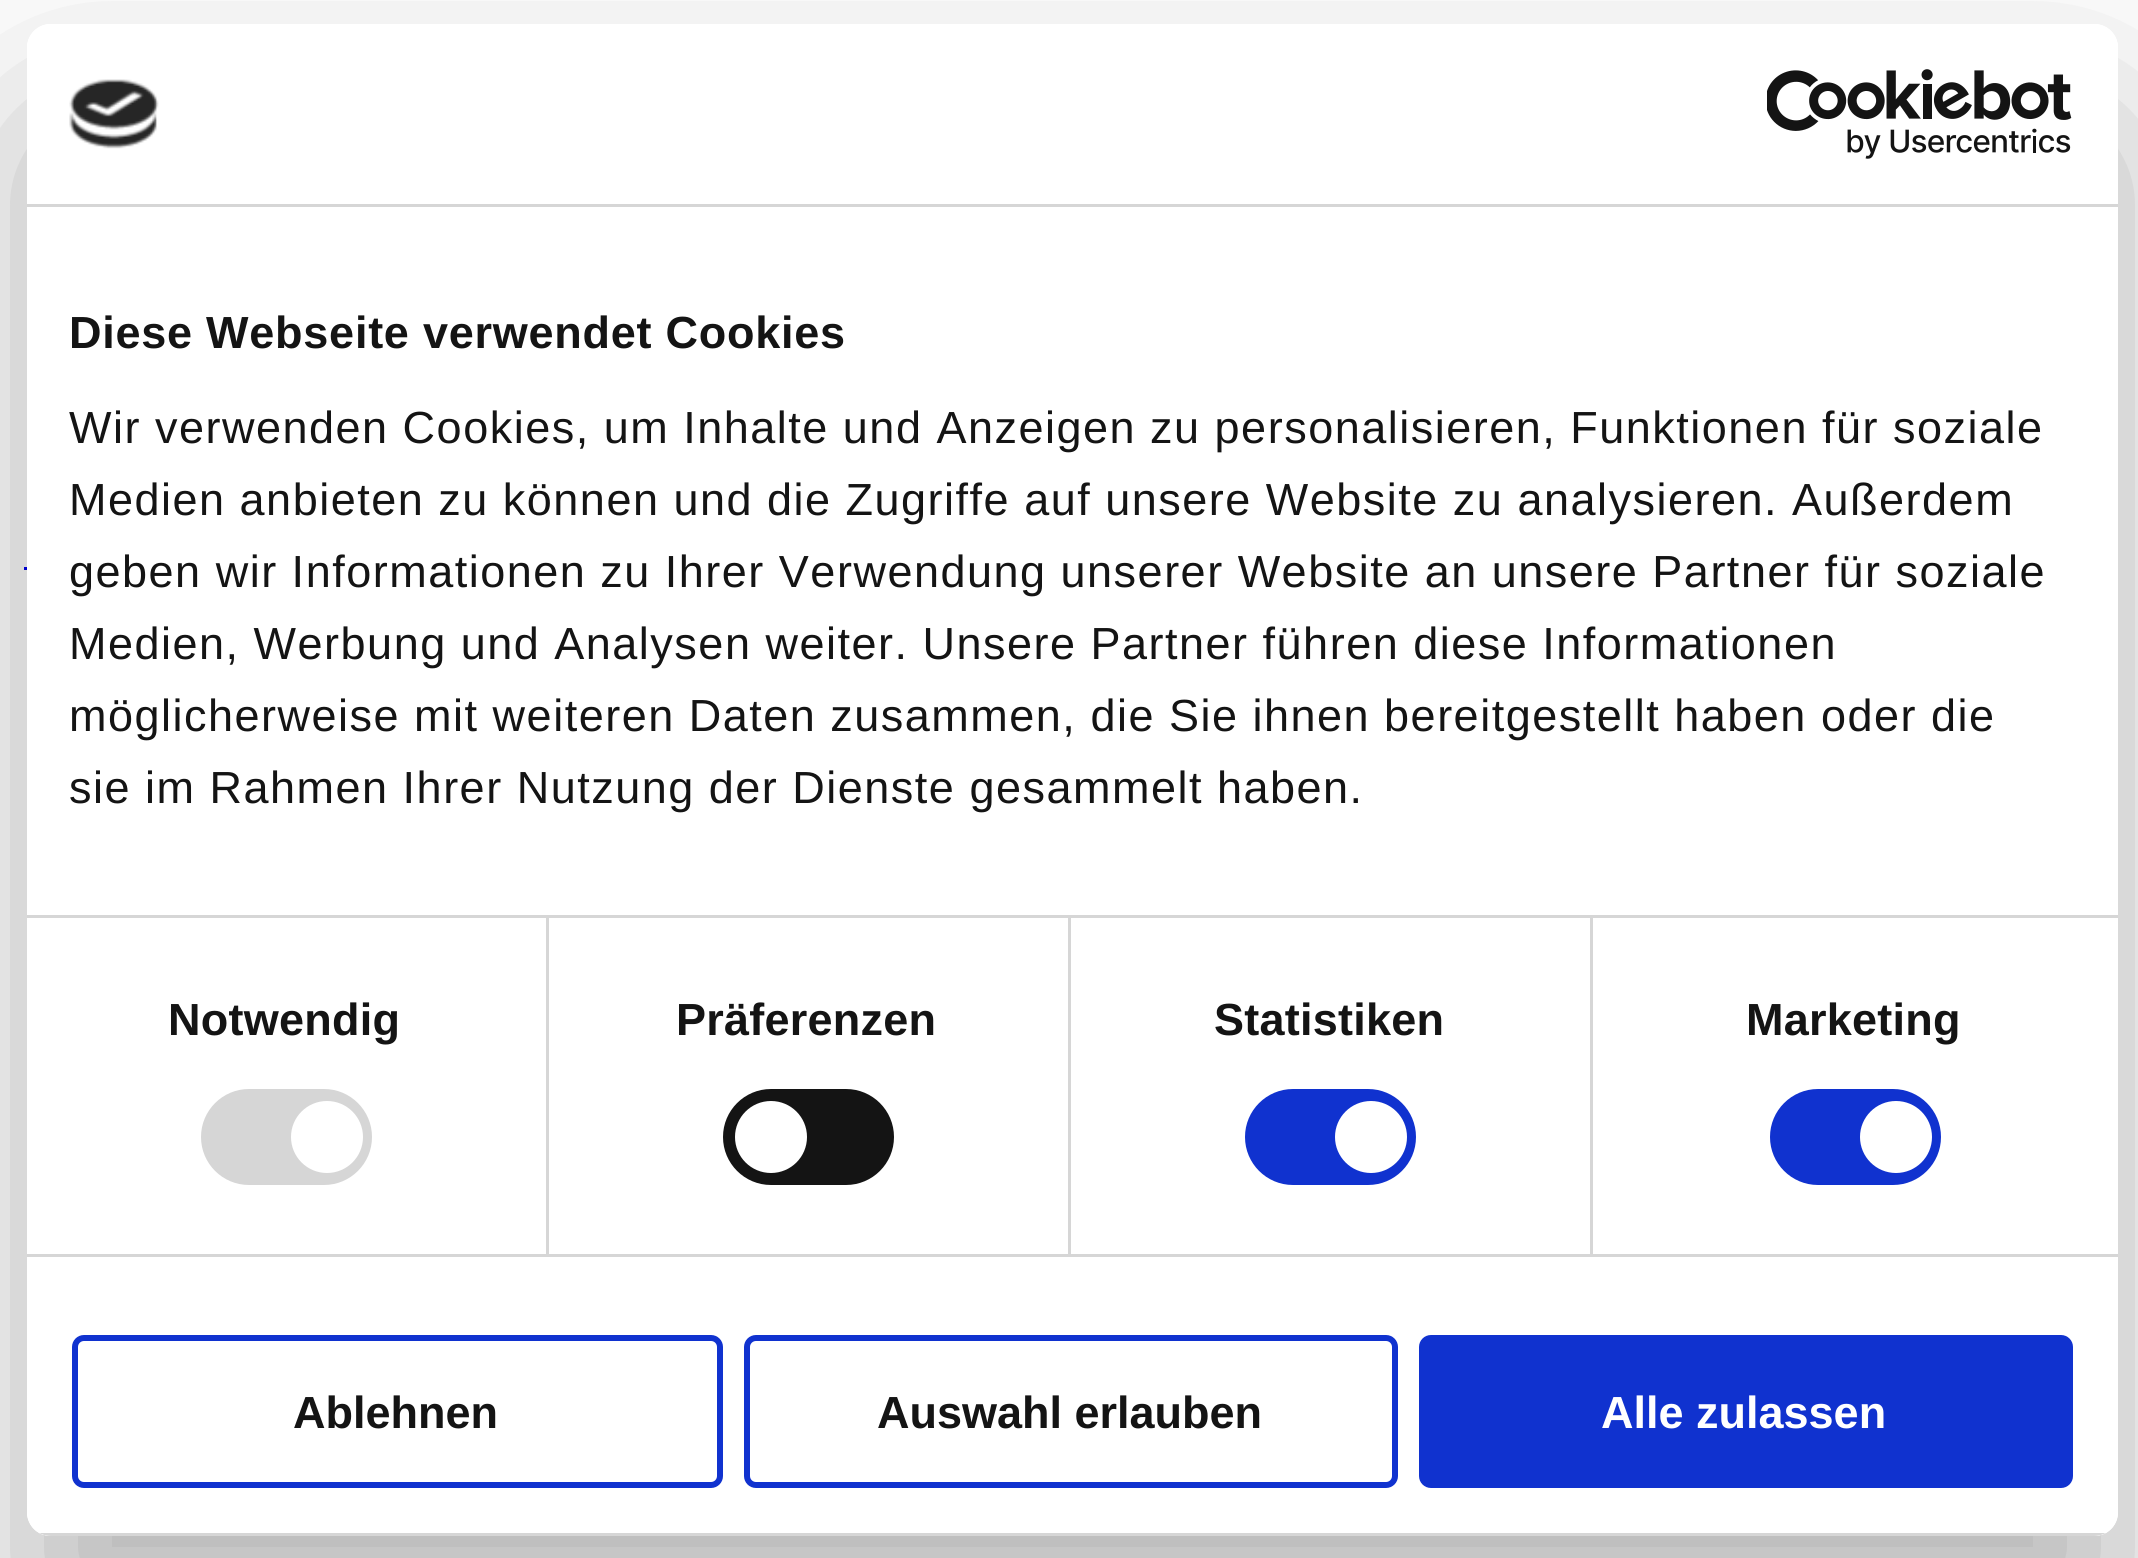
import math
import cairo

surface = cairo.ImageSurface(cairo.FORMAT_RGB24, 2138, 1558)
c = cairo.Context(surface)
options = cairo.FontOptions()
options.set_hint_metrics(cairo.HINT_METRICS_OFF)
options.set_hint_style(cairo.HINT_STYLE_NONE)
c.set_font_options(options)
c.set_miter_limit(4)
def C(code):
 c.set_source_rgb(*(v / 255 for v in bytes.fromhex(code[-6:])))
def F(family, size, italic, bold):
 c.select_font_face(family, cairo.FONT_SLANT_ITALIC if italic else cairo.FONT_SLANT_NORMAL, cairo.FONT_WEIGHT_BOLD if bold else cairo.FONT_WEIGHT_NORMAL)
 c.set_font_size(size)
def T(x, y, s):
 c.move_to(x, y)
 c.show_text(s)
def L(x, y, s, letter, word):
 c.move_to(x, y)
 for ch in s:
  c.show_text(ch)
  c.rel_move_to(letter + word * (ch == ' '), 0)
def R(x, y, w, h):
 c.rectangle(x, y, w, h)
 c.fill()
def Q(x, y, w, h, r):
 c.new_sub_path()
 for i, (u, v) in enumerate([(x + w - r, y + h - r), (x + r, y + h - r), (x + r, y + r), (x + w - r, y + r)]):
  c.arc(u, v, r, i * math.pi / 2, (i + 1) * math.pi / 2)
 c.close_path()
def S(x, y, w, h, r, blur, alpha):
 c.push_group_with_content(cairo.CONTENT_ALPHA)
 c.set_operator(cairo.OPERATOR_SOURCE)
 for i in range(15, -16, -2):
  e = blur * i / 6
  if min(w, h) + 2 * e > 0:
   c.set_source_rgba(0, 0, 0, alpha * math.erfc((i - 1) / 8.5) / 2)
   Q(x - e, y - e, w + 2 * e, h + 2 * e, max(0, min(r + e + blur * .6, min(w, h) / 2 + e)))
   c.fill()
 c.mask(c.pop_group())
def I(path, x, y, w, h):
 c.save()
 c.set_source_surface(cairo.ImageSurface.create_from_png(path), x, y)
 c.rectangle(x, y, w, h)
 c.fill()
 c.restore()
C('ffffff')
c.paint()
C('0000ee')
R(24,567,3,3)
c.save()
c.set_fill_rule(cairo.FILL_RULE_EVEN_ODD)
c.new_path()
c.move_to(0,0)
c.line_to(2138,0)
c.line_to(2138,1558)
c.line_to(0,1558)
c.close_path()
c.move_to(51,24)
c.line_to(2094,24)
c.curve_to(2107.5,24,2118,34.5,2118,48)
c.line_to(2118,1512)
c.curve_to(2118,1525.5,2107.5,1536,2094,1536)
c.line_to(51,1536)
c.curve_to(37.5,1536,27,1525.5,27,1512)
c.line_to(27,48)
c.curve_to(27,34.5,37.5,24,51,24)
c.close_path()
c.clip()
C('000000')
S(27,120,2091,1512,24,102,.3)
c.restore()
C('ffffff')
Q(27,24,2091,1512,24)
c.fill()
C('d6d6d6')
R(27,204,2091,3)
I('1.png',69,79,90,70)
I('2.png',1767,69,305,90)
R(27,915,2091,3)
F('Liberation Sans',45,0,1)
C('141414')
L(69,348,'Diese Webseite verwendet Cookies',.75,0)
F('Liberation Sans',45,0,0)
L(69,443,'Wir verwenden Cookies, um Inhalte und Anzeigen zu personalisieren, Funktionen für soziale',1.5,0)
L(69,515,'Medien anbieten zu können und die Zugriffe auf unsere Website zu analysieren. Außerdem',1.5,0)
L(69,587,'geben wir Informationen zu Ihrer Verwendung unserer Website an unsere Partner für soziale',1.5,0)
L(69,659,'Medien, Werbung und Analysen weiter. Unsere Partner führen diese Informationen',1.5,0)
L(69,731,'möglicherweise mit weiteren Daten zusammen, die Sie ihnen bereitgestellt haben oder die',1.5,0)
L(69,803,'sie im Rahmen Ihrer Nutzung der Dienste gesammelt haben.',1.5,0)
C('d6d6d6')
R(27,1254,2091,3)
R(546,918,3,336)
F('Liberation Sans',45,0,1)
C('141414')
L(168,1035,'Notwendig',.25,0)
C('d6d6d6')
Q(201,1089,171,96,48)
c.fill()
C('ffffff')
c.arc(327,1137,36,0,2 * math.pi)
c.fill()
C('d6d6d6')
R(1068,918,3,336)
C('141414')
L(676,1035,'Präferenzen',.25,0)
Q(723,1089,171,96,48)
c.fill()
C('ffffff')
c.arc(771,1137,36,0,2 * math.pi)
c.fill()
C('d6d6d6')
R(1590,918,3,336)
C('141414')
L(1214,1035,'Statistiken',.25,0)
C('1032cf')
Q(1245,1089,171,96,48)
c.fill()
C('ffffff')
c.arc(1371,1137,36,0,2 * math.pi)
c.fill()
C('141414')
L(1746,1035,'Marketing',.25,0)
C('1032cf')
Q(1770,1089,171,96,48)
c.fill()
C('ffffff')
c.arc(1896,1137,36,0,2 * math.pi)
c.fill()
c.save()
Q(27,24,2091,1512,24)
c.clip()
C('d6d6d6')
R(39,1533,2067,3)
c.restore()
Q(75,1338,645,147,9)
C('1032cf')
c.set_line_width(6)
c.stroke()
C('141414')
T(293,1428,'Ablehnen')
Q(747,1338,648,147,9)
C('1032cf')
c.stroke()
C('141414')
T(877,1428,'Auswahl erlauben')
C('1032cf')
Q(1422,1338,648,147,9)
c.fill_preserve()
c.stroke()
C('ffffff')
T(1601,1428,'Alle zulassen')
surface.write_to_png('o.png')
